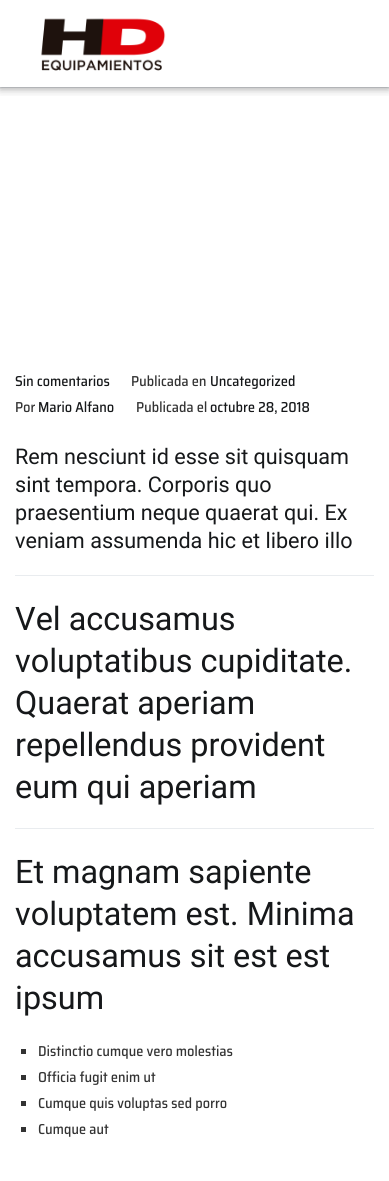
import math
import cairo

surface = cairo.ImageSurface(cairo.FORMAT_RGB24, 389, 1181)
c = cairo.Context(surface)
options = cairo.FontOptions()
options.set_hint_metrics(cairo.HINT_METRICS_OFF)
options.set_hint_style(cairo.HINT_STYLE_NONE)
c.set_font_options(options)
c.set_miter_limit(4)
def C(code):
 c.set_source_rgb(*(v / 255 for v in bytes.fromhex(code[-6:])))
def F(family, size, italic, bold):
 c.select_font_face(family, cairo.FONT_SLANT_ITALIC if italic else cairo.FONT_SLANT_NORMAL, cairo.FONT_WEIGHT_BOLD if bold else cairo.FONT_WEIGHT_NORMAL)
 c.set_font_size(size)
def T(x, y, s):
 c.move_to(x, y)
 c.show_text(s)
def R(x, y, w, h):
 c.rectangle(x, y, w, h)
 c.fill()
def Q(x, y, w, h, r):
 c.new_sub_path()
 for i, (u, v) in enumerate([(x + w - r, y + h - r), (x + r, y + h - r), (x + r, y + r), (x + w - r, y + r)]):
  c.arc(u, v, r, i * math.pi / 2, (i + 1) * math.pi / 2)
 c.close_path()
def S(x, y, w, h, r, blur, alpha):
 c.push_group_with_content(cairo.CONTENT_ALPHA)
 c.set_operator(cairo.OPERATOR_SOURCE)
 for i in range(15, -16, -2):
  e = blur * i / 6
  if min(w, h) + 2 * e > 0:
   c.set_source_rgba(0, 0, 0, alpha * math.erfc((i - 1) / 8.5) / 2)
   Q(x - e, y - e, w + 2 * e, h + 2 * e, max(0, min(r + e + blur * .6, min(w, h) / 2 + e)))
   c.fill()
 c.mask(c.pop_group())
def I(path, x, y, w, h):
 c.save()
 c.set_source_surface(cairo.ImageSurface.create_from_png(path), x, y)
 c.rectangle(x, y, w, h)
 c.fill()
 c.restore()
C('ffffff')
c.paint()
C('e9ecef')
R(0,87,389,1)
c.save()
c.rectangle(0,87,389,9)
c.clip()
C('000000')
S(0,0,389,87,0,5,.5)
c.restore()
I('1.png',41,18,125,53)
I('2.png',15,375,95,12)
I('3.png',132,375,74,12)
I('4.png',211,375,84,14)
I('5.png',16,402,19,11)
I('6.png',39,401,75,12)
I('7.png',137,401,70,12)
I('8.png',210,401,100,13)
F('Roboto',21.6,0,0)
C('16181a')
T(15,464,'Rem nesciunt id esse sit quisquam')
T(15,492,'sint tempora. Corporis quo')
T(15,520,'praesentium neque quaerat qui. Ex')
T(15,548,'veniam assumenda hic et libero illo')
C('e9ecef')
R(15,575,359,1)
F('Roboto',32.4,0,0)
C('16181a')
T(15,630,'Vel accusamus')
T(15,672,'voluptatibus cupiditate.')
T(15,714,'Quaerat aperiam')
T(15,756,'repellendus provident')
T(15,798,'eum qui aperiam')
C('e9ecef')
R(15,828,359,1)
C('16181a')
T(15,883,'Et magnam sapiente')
T(15,925,'voluptatem est. Minima')
T(15,967,'accusamus sit est est')
T(15,1009,'ipsum')
C('333333')
R(21,1049,5,5)
I('9.png',39,1045,194,14)
R(21,1075,5,5)
I('10.png',38,1071,118,14)
R(21,1101,5,5)
I('11.png',38,1097,189,14)
R(21,1127,5,5)
I('12.png',38,1124,71,13)
surface.write_to_png('o.png')
